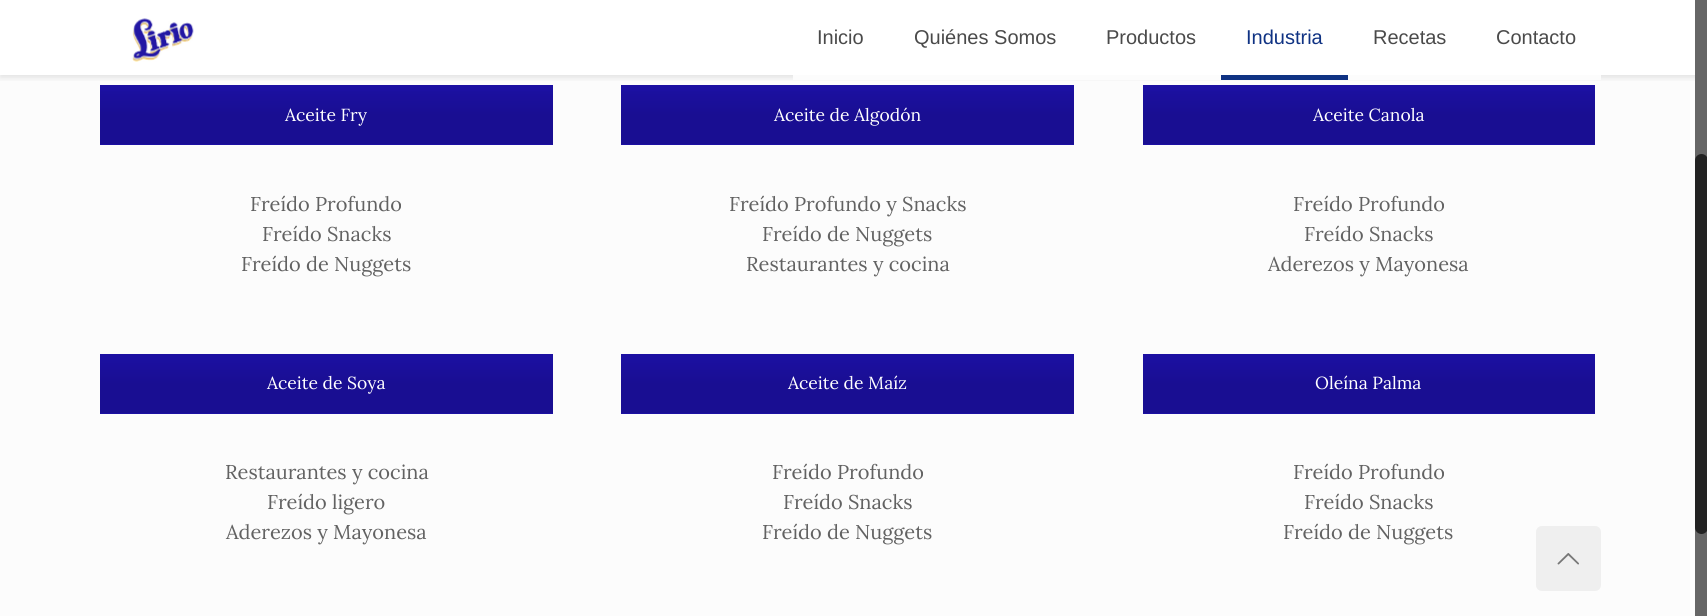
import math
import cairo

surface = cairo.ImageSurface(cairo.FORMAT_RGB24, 1707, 616)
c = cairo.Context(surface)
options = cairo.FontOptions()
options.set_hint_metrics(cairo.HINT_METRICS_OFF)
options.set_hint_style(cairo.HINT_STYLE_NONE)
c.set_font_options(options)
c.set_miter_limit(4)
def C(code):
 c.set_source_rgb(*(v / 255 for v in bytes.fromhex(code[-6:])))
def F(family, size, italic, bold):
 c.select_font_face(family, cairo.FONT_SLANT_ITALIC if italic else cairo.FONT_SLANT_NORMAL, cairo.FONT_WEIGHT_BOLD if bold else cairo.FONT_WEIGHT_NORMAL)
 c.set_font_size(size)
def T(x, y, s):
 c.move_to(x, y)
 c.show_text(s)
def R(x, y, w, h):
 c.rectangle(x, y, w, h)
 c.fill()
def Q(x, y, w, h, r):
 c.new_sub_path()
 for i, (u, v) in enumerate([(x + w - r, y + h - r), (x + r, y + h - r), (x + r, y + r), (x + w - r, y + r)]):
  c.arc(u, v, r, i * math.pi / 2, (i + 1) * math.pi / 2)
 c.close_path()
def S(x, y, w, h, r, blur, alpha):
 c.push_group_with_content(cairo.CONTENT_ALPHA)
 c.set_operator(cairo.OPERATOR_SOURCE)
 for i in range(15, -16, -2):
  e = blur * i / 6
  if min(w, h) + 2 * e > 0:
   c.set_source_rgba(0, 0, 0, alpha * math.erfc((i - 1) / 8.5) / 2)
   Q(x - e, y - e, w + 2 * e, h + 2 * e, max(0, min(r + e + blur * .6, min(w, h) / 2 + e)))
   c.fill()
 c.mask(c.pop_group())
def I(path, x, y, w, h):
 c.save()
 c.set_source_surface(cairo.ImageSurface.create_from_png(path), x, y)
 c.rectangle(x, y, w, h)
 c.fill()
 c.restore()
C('fcfcfc')
c.paint()
C('1c10a2')
R(100,85,453,60)
R(621,85,453,60)
R(1143,85,452,60)
c.save()
c.rectangle(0,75,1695,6)
c.clip()
C('000000')
S(0,3,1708,75,0,3,.1)
c.restore()
c.set_source_rgba(1,1,1,0.97)
R(0,0,1695,75)
I('1.png',132,18,62,44)
F('Liberation Sans',20,0,0)
C('4a4a4a')
T(817,44,'Inicio')
C('fcfcfc')
R(793,75,428,5)
C('4a4a4a')
T(914,44,'Quiénes Somos')
T(1106,44,'Productos')
C('0f3283')
T(1246,44,'Industria')
R(1221,75,127,5)
C('4a4a4a')
T(1373,44,'Recetas')
C('fcfcfc')
R(1348,75,253,5)
C('4a4a4a')
T(1496,44,'Contacto')
gradient = cairo.LinearGradient(551,86,551,144)
gradient.add_color_stop_rgba(0,0.11,0.063,0.635,1)
gradient.add_color_stop_rgba(.5,0.098,0.055,0.573,1)
gradient.add_color_stop_rgba(1,0.098,0.055,0.573,1)
c.set_source(gradient)
R(100,91,453,53)
F('Lora',17.5,0,0)
C('ffffff')
T(285,121,'Aceite Fry')
F('Lora',20,0,0)
C('626262')
T(250,211,'Freído Profundo')
T(262,241,'Freído Snacks')
T(241,271,'Freído de Nuggets')
gradient = cairo.LinearGradient(1073,86,1073,144)
gradient.add_color_stop_rgba(0,0.11,0.063,0.635,1)
gradient.add_color_stop_rgba(.5,0.098,0.055,0.573,1)
gradient.add_color_stop_rgba(1,0.098,0.055,0.573,1)
c.set_source(gradient)
R(621,91,453,53)
F('Lora',17.5,0,0)
C('ffffff')
T(774,121,'Aceite de Algodón')
F('Lora',20,0,0)
C('626262')
T(729,211,'Freído Profundo y Snacks')
T(762,241,'Freído de Nuggets')
T(746,271,'Restaurantes y cocina')
gradient = cairo.LinearGradient(1594,86,1594,144)
gradient.add_color_stop_rgba(0,0.11,0.063,0.635,1)
gradient.add_color_stop_rgba(.5,0.098,0.055,0.573,1)
gradient.add_color_stop_rgba(1,0.098,0.055,0.573,1)
c.set_source(gradient)
R(1143,91,452,53)
F('Lora',17.5,0,0)
C('ffffff')
T(1313,121,'Aceite Canola')
F('Lora',20,0,0)
C('626262')
T(1293,211,'Freído Profundo')
T(1304,241,'Freído Snacks')
T(1268,271,'Aderezos y Mayonesa')
C('1c10a2')
R(100,354,453,60)
gradient = cairo.LinearGradient(551,355,551,413)
gradient.add_color_stop_rgba(0,0.11,0.063,0.635,1)
gradient.add_color_stop_rgba(.5,0.098,0.055,0.573,1)
gradient.add_color_stop_rgba(1,0.098,0.055,0.573,1)
c.set_source(gradient)
R(100,360,453,53)
F('Lora',17.5,0,0)
C('ffffff')
T(267,389,'Aceite de Soya')
F('Lora',20,0,0)
C('626262')
T(225,479,'Restaurantes y cocina')
T(267,509,'Freído ligero')
T(226,539,'Aderezos y Mayonesa')
C('1c10a2')
R(621,354,453,60)
gradient = cairo.LinearGradient(1073,355,1073,413)
gradient.add_color_stop_rgba(0,0.11,0.063,0.635,1)
gradient.add_color_stop_rgba(.5,0.098,0.055,0.573,1)
gradient.add_color_stop_rgba(1,0.098,0.055,0.573,1)
c.set_source(gradient)
R(621,360,453,53)
F('Lora',17.5,0,0)
C('ffffff')
T(788,389,'Aceite de Maíz')
F('Lora',20,0,0)
C('626262')
T(772,479,'Freído Profundo')
T(783,509,'Freído Snacks')
T(762,539,'Freído de Nuggets')
C('1c10a2')
R(1143,354,452,60)
gradient = cairo.LinearGradient(1594,355,1594,413)
gradient.add_color_stop_rgba(0,0.11,0.063,0.635,1)
gradient.add_color_stop_rgba(.5,0.098,0.055,0.573,1)
gradient.add_color_stop_rgba(1,0.098,0.055,0.573,1)
c.set_source(gradient)
R(1143,360,452,53)
F('Lora',17.5,0,0)
C('ffffff')
T(1315,389,'Oleína Palma')
F('Lora',20,0,0)
C('626262')
T(1293,479,'Freído Profundo')
T(1304,509,'Freído Snacks')
T(1283,539,'Freído de Nuggets')
C('666666')
R(1695,0,12,616)
C('222222')
Q(1695,154,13,380,6.5)
c.fill()
C('efefef')
Q(1536,526,65,65,6)
c.fill()
I('2.png',1557,553,22,12)
surface.write_to_png('o.png')
